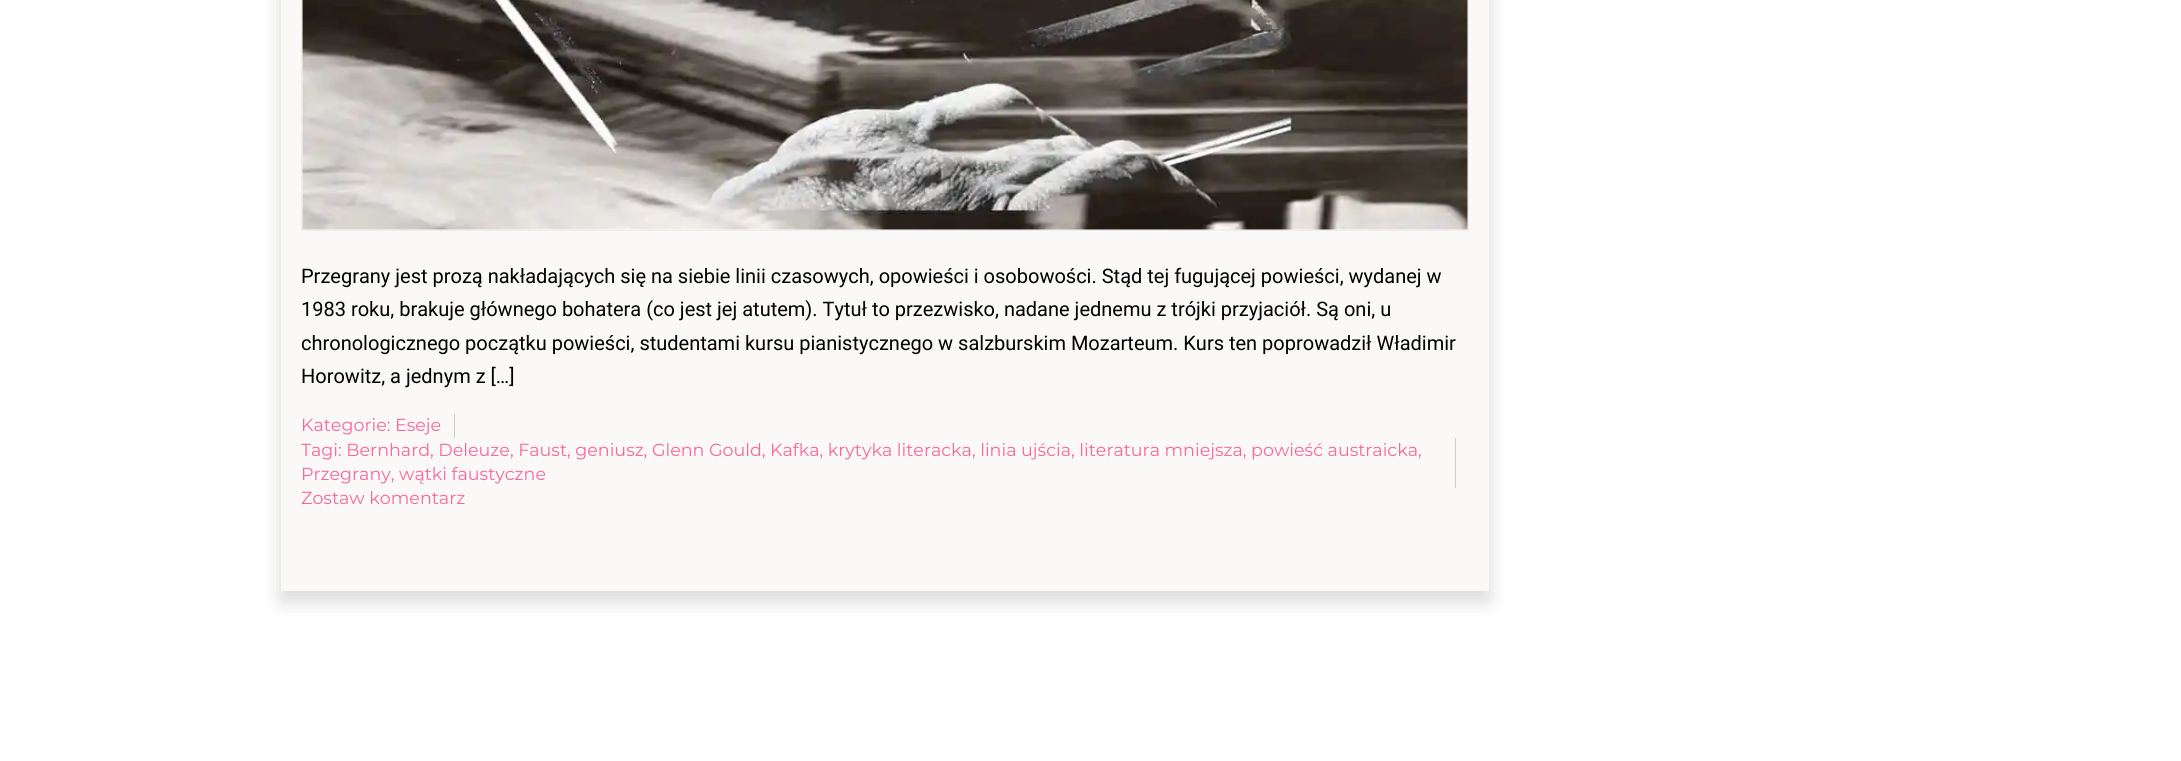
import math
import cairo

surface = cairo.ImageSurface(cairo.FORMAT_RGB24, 2181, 761)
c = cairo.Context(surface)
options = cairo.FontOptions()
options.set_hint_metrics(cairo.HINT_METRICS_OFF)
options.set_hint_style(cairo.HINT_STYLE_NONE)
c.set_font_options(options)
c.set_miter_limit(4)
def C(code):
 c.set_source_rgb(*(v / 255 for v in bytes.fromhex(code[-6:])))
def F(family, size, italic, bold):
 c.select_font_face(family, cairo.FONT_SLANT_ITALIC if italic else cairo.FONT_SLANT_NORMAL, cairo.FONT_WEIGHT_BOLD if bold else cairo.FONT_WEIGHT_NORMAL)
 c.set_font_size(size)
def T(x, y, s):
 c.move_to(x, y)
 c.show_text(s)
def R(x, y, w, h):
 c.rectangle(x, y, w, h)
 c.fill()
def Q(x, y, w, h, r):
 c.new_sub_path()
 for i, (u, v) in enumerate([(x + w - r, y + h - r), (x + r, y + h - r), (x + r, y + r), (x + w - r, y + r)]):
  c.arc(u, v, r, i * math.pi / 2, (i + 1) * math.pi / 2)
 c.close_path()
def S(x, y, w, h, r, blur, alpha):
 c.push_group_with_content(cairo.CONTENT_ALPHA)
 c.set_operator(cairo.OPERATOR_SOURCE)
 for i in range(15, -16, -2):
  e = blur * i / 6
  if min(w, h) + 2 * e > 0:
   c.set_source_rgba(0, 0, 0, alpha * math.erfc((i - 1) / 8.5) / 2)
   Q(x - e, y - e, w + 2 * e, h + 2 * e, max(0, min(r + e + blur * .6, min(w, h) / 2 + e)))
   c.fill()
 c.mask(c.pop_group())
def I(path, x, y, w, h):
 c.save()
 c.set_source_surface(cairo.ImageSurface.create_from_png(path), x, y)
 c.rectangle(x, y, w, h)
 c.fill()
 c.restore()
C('ffffff')
c.paint()
C('faf9f7')
R(281,0,1208,591)
c.save()
c.set_fill_rule(cairo.FILL_RULE_EVEN_ODD)
c.new_path()
c.move_to(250,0)
c.line_to(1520,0)
c.line_to(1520,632)
c.line_to(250,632)
c.close_path()
c.move_to(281,-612)
c.line_to(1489,-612)
c.line_to(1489,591)
c.line_to(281,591)
c.close_path()
c.clip()
C('000000')
S(281,-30,1208,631,0,10,.15)
c.restore()
c.rectangle(301.5,-.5,1167,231)
C('ededed')
c.set_line_width(1)
c.stroke()
I('1.png',302,0,1166,230)
F('Roboto',20,0,0)
C('000000')
T(301,283,'Przegrany jest prozą nakładających się na siebie linii czasowych, opowieści i osobowości. Stąd tej fugującej powieści, wydanej w')
T(301,316,'1983 roku, brakuje głównego bohatera (co jest jej atutem). Tytuł to przezwisko, nadane jednemu z trójki przyjaciół. Są oni, u')
T(301,350,'chronologicznego początku powieści, studentami kursu pianistycznego w salzburskim Mozarteum. Kurs ten poprowadził Władimir')
T(301,383,'Horowitz, a jednym z […]')
C('cccccc')
R(454,414,1,24)
F('Montserrat',17.5,0,0)
C('f8669d')
T(301,431,'Kategorie: Eseje')
C('cccccc')
R(1455,438,1,50)
C('f8669d')
T(301,456,'Tagi: Bernhard, Deleuze, Faust, geniusz, Glenn Gould, Kafka, krytyka literacka, linia ujścia, literatura mniejsza, powieść austraicka,')
T(301,480,'Przegrany, wątki faustyczne')
T(301,504,'Zostaw komentarz')
surface.write_to_png('o.png')
